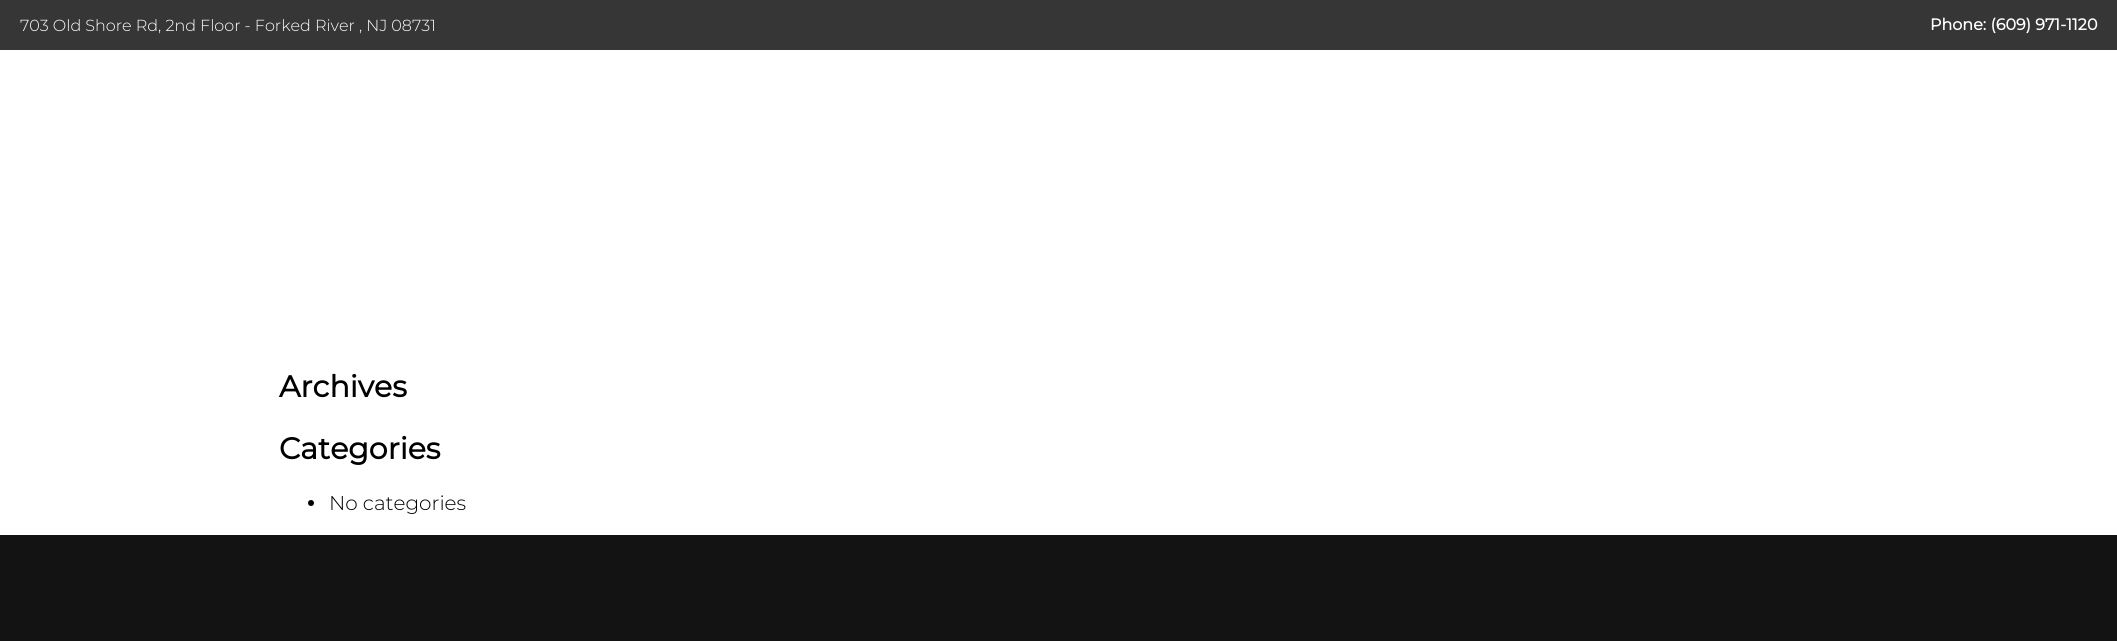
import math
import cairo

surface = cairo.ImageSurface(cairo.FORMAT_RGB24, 2117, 641)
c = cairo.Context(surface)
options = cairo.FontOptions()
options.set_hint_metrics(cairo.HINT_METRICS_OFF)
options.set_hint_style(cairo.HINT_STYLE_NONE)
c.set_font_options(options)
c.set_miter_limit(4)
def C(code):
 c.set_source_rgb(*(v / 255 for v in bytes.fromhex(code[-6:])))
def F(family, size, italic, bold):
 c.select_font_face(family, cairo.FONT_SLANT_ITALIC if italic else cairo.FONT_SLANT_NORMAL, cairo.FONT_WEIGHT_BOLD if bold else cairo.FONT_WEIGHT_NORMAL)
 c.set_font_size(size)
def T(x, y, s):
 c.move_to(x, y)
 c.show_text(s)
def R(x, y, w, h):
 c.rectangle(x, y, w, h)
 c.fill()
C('ffffff')
c.paint()
C('363636')
R(0,0,2117,50)
F('Montserrat Light',16,0,0)
C('ffffff')
T(20,31,'703 Old Shore Rd, 2nd Floor - Forked River , NJ 08731')
F('Montserrat',16,0,1)
T(1930,30,'Phone: (609) 971-1120')
F('Montserrat',30,0,1)
C('000000')
T(279,397,'Archives')
T(279,459,'Categories')
c.new_path()
c.arc(311,503,3,0,2 * math.pi)
c.fill()
F('Montserrat Light',20,0,0)
T(329,510,'No categories')
C('131313')
R(0,535,2117,106)
surface.write_to_png('o.png')
